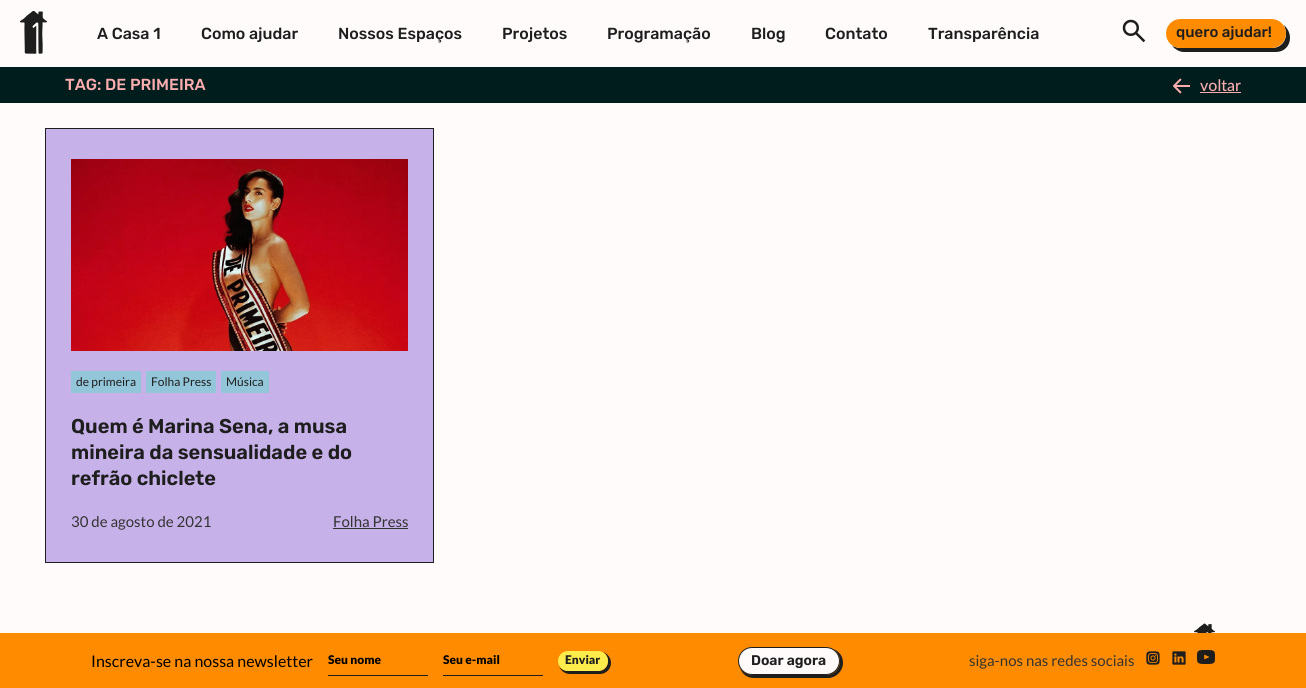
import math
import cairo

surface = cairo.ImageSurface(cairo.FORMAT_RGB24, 1306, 688)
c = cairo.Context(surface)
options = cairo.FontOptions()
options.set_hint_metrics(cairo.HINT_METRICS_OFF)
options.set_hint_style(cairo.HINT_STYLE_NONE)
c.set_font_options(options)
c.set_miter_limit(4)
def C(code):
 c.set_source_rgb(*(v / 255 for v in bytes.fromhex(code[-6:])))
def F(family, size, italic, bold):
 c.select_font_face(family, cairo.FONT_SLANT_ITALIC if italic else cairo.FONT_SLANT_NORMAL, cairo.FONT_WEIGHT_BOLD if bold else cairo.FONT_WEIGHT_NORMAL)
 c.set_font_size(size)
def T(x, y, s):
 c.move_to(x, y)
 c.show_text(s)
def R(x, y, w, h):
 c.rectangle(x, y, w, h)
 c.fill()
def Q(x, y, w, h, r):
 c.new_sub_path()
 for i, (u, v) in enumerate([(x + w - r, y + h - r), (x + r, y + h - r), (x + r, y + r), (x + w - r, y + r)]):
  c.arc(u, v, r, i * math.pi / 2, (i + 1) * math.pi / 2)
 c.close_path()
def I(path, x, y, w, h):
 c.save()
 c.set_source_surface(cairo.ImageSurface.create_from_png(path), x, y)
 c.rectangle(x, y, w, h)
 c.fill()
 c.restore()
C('fffbfb')
c.paint()
I('1.png',20,11,27,43)
F('Rubik Medium',16,0,0)
C('1e1e1e')
T(97,39,'A Casa 1')
T(201,39,'Como ajudar')
T(338,39,'Nossos Espaços')
T(502,39,'Projetos')
T(607,39,'Programação')
T(751,39,'Blog')
T(825,39,'Contato')
T(928,39,'Transparência')
I('2.png',1122,19,24,24)
c.new_path()
c.move_to(1172,46)
c.curve_to(1175,49,1179,52,1184,52)
c.line_to(1276,52)
c.curve_to(1284,52,1290,46,1290,38)
c.curve_to(1290,32,1287,28,1284,25)
c.curve_to(1285,28,1286,31,1286,34)
c.curve_to(1286,42,1280,48,1272,48)
c.line_to(1180,48)
c.curve_to(1178,48,1175,47,1172,46)
c.close_path()
c.fill()
C('ff8c00')
Q(1166,19,120,29,14.5)
c.fill()
F('Rubik Medium',15,0,0)
C('1e1e1e')
T(1176,37,'quero ajudar!')
C('001d1d')
R(0,67,1306,36)
F('Rubik Medium',16,0,0)
C('fdadaf')
T(65,90,'TAG: DE PRIMEIRA')
I('3.png',1173,78,17,16)
F('Lato Medium',16,0,0)
T(1200,91,'voltar')
R(1200,92,41,1)
C('c7b1e9')
c.rectangle(45.5,128.5,388,434)
c.fill_preserve()
C('1e1e1e')
c.set_line_width(1)
c.stroke()
I('4.png',71,159,337,192)
C('94c6d9')
R(71,371,70,22)
F('Lato',12,0,0)
C('1e1e1e')
T(76,386,'de primeira')
C('94c6d9')
R(146,371,70,22)
C('1e1e1e')
T(151,386,'Folha Press')
C('94c6d9')
R(221,371,48,22)
C('1e1e1e')
T(226,386,'Música')
F('Rubik SemiBold',20,0,0)
T(71,433,'Quem é Marina Sena, a musa')
T(71,459,'mineira da sensualidade e do')
T(71,485,'refrão chiclete')
F('Lato',15,0,0)
C('333333')
T(71,527,'30 de agosto de 2021')
T(333,527,'Folha Press')
R(333,528,75,1)
I('5.png',1194,623,21,10)
C('ff8c00')
R(0,633,1306,55)
F('Lato',16,0,0)
C('000000')
T(91,667,'Inscreva-se na nossa newsletter')
C('1e1e1e')
R(328,675,100,1)
F('Lato Black',12,0,0)
C('000000')
T(328,664,'Seu nome')
C('1e1e1e')
R(443,675,100,1)
C('000000')
T(443,664,'Seu e-mail')
C('1e1e1e')
c.new_path()
c.move_to(559,666)
c.curve_to(561,671,565,674,570,674)
c.line_to(600,674)
c.curve_to(606,674,611,669,611,663)
c.curve_to(611,658,608,654,603,652)
c.curve_to(606,654,608,657,608,661)
c.curve_to(608,667,604,671,598,671)
c.line_to(568,671)
c.curve_to(564,671,561,669,559,666)
c.close_path()
c.fill()
C('feec4d')
Q(558,651,50,20,10)
c.fill()
C('1e1e1e')
T(565,664,'Enviar')
c.new_path()
c.move_to(740,668)
c.curve_to(742,674,747,678,754,678)
c.line_to(828,678)
c.curve_to(836,678,843,671,843,663)
c.curve_to(843,656,839,651,833,649)
c.curve_to(837,651,840,656,840,661)
c.curve_to(840,669,834,675,826,675)
c.line_to(752,675)
c.curve_to(747,675,742,672,740,668)
c.close_path()
c.fill()
C('fffbfb')
Q(738.5,647.5,101,27,13.5)
c.fill_preserve()
C('1e1e1e')
c.stroke()
F('Rubik SemiBold',14,0,0)
T(751,665,'Doar agora')
F('Lato',15,0,0)
C('333333')
T(969,666,'siga-nos nas redes sociais')
I('6.png',1146,651,14,14)
I('7.png',1172,651,14,14)
I('8.png',1197,650,18,14)
surface.write_to_png('o.png')
